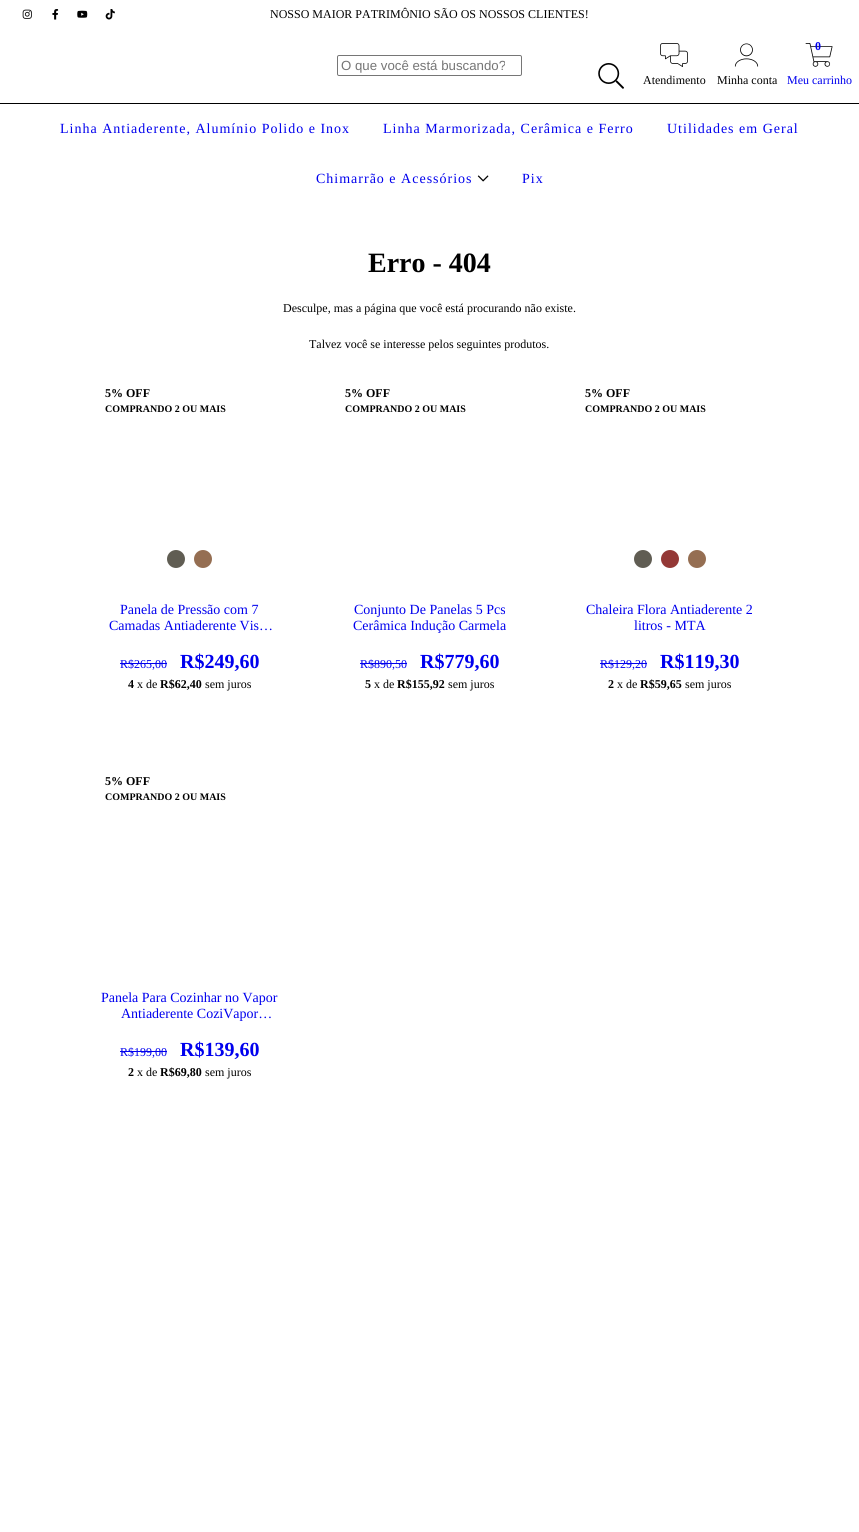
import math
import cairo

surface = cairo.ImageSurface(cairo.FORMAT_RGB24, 859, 1532)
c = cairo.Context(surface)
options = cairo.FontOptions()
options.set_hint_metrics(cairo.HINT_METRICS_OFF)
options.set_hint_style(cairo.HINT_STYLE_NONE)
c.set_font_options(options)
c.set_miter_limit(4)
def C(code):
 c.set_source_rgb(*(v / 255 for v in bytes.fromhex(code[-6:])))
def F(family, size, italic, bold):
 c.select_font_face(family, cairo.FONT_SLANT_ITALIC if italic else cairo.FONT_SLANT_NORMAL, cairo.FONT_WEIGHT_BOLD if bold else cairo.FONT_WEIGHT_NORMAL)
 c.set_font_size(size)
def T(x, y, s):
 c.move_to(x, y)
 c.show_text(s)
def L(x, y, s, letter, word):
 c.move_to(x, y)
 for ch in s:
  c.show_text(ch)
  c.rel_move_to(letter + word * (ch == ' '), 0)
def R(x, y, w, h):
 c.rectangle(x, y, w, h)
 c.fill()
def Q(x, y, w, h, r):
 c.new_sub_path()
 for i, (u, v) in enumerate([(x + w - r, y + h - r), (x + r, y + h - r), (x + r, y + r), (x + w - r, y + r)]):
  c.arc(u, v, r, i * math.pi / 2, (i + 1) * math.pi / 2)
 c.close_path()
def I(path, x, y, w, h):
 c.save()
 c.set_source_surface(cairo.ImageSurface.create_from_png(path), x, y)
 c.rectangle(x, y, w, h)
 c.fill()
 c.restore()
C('ffffff')
c.paint()
I('1.png',22,9,10,10)
I('2.png',52,9,7,11)
I('3.png',77,10,11,8)
I('4.png',105,9,10,11)
F('Liberation Serif',12,0,0)
C('000000')
T(270,18,'NOSSO MAIOR PATRIMÔNIO SÃO OS NOSSOS CLIENTES!')
Q(337.5,55.5,184,20,1.5)
C('767676')
c.set_line_width(1)
c.stroke()
c.save()
c.rectangle(341,58,164,15)
c.clip()
F('Liberation Sans',13.25,0,0)
C('757575')
T(341,70,'O que você está buscando?')
c.restore()
I('5.png',598,63,26,26)
I('6.png',660,43,28,24)
C('000000')
T(643,84,'Atendimento')
I('7.png',734,43,25,24)
T(717,84,'Minha conta')
I('8.png',805,43,28,24)
F('Liberation Serif',12,0,1)
C('0000ee')
T(815,50,'0')
F('Liberation Serif',12,0,0)
T(787,84,'Meu carrinho')
C('000000')
R(0,103,859,1)
F('Liberation Serif',14,0,0)
C('0000ee')
L(60,133,'Linha Antiaderente, Alumínio Polido e Inox',1,0)
L(383,133,'Linha Marmorizada, Cerâmica e Ferro',1,0)
L(667,133,'Utilidades em Geral',1,0)
L(316,183,'Chimarrão e Acessórios',1,0)
I('9.png',477,175,12,7)
L(522,183,'Pix',1,0)
F('Liberation Serif',28,0,1)
C('000000')
T(368,272,'Erro - 404')
F('Liberation Serif',12,0,0)
T(283,312,'Desculpe, mas a página que você está procurando não existe.')
T(309,348,'Talvez você se interesse pelos seguintes produtos.')
F('Liberation Serif',12,0,1)
T(105,397,'5% OFF')
F('Liberation Serif',10,0,1)
T(105,412,'COMPRANDO 2 OU MAIS')
C('605d53')
c.new_path()
c.arc(176,559,9,0,2 * math.pi)
c.fill()
C('956e52')
c.arc(203,559,9,0,2 * math.pi)
c.fill()
F('Liberation Serif',14,0,0)
C('0000ee')
T(120,614,'Panela de Pressão com 7')
T(109,630,'Camadas Antiaderente Vis…')
F('Liberation Serif',12,0,0)
T(120,668,'R$265,00')
R(120,663,47,1)
F('Liberation Serif',20,0,1)
T(180,668,'R$249,60')
F('Liberation Serif',12,0,1)
C('000000')
T(128,688,'4')
F('Liberation Serif',12,0,0)
T(137,688,'x de')
F('Liberation Serif',12,0,1)
T(160,688,'R$62,40')
F('Liberation Serif',12,0,0)
T(205,688,'sem juros')
F('Liberation Serif',12,0,1)
T(345,397,'5% OFF')
F('Liberation Serif',10,0,1)
T(345,412,'COMPRANDO 2 OU MAIS')
F('Liberation Serif',14,0,0)
C('0000ee')
T(354,614,'Conjunto De Panelas 5 Pcs')
T(353,630,'Cerâmica Indução Carmela')
F('Liberation Serif',12,0,0)
T(360,668,'R$890,50')
R(360,663,47,1)
F('Liberation Serif',20,0,1)
T(420,668,'R$779,60')
F('Liberation Serif',12,0,1)
C('000000')
T(365,688,'5')
F('Liberation Serif',12,0,0)
T(374,688,'x de')
F('Liberation Serif',12,0,1)
T(397,688,'R$155,92')
F('Liberation Serif',12,0,0)
T(448,688,'sem juros')
F('Liberation Serif',12,0,1)
T(585,397,'5% OFF')
F('Liberation Serif',10,0,1)
T(585,412,'COMPRANDO 2 OU MAIS')
C('605d53')
c.new_path()
c.arc(643,559,9,0,2 * math.pi)
c.fill()
C('943836')
c.arc(670,559,9,0,2 * math.pi)
c.fill()
C('956e52')
c.arc(697,559,9,0,2 * math.pi)
c.fill()
F('Liberation Serif',14,0,0)
C('0000ee')
T(586,614,'Chaleira Flora Antiaderente 2')
T(634,630,'litros - MTA')
F('Liberation Serif',12,0,0)
T(600,668,'R$129,20')
R(600,663,47,1)
F('Liberation Serif',20,0,1)
T(660,668,'R$119,30')
F('Liberation Serif',12,0,1)
C('000000')
T(608,688,'2')
F('Liberation Serif',12,0,0)
T(617,688,'x de')
F('Liberation Serif',12,0,1)
T(640,688,'R$59,65')
F('Liberation Serif',12,0,0)
T(685,688,'sem juros')
F('Liberation Serif',12,0,1)
T(105,785,'5% OFF')
F('Liberation Serif',10,0,1)
T(105,800,'COMPRANDO 2 OU MAIS')
F('Liberation Serif',14,0,0)
C('0000ee')
T(101,1002,'Panela Para Cozinhar no Vapor')
T(121,1018,'Antiaderente CoziVapor…')
F('Liberation Serif',12,0,0)
T(120,1056,'R$199,00')
R(120,1051,47,1)
F('Liberation Serif',20,0,1)
T(180,1056,'R$139,60')
F('Liberation Serif',12,0,1)
C('000000')
T(128,1076,'2')
F('Liberation Serif',12,0,0)
T(137,1076,'x de')
F('Liberation Serif',12,0,1)
T(160,1076,'R$69,80')
F('Liberation Serif',12,0,0)
T(205,1076,'sem juros')
surface.write_to_png('o.png')
